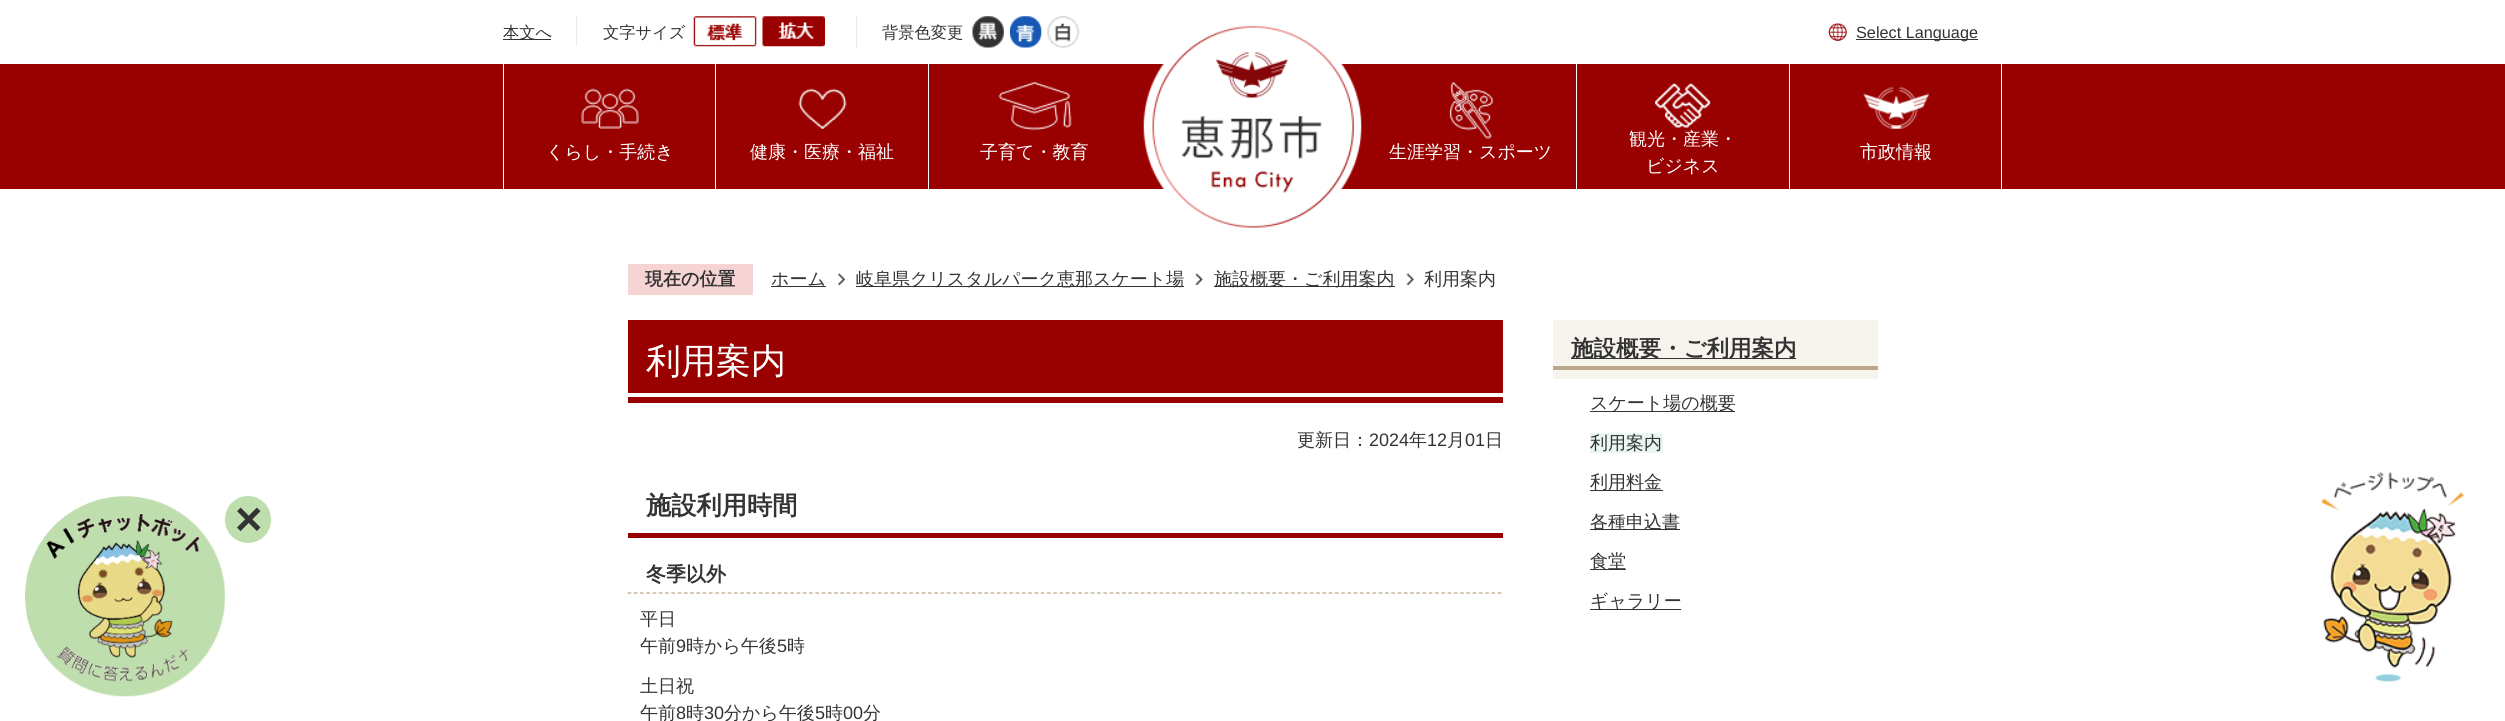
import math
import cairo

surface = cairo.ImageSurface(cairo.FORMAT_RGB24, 2505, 721)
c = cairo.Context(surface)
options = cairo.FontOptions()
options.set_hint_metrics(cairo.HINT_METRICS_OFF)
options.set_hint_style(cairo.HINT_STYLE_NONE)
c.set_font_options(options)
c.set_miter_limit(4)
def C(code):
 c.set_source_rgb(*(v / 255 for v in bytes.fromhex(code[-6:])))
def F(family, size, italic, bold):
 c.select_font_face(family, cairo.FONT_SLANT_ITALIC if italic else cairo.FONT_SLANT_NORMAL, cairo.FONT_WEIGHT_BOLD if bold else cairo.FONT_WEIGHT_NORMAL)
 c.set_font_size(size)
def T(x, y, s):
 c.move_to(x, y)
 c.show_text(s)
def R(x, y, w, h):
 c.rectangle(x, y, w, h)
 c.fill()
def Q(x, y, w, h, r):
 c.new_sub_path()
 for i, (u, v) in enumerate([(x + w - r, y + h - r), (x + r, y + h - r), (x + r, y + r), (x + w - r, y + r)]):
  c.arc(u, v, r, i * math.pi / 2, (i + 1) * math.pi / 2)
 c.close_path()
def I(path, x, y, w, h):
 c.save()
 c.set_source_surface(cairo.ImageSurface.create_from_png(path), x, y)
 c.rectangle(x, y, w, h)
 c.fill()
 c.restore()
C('ffffff')
c.paint()
C('333333')
R(503,39,48,1)
F('WenQuanYi Zen Hei Medium',16.25,0,0)
T(503,38,'本文へ')
C('eaeaea')
R(576,16,1,30)
C('333333')
T(603,38,'文字サイズ')
I('1.png',693,16,64,31)
I('2.png',762,16,63,31)
C('eaeaea')
R(856,16,1,32)
C('333333')
T(882,38,'背景色変更')
I('3.png',972,16,32,32)
I('4.png',1010,16,32,32)
I('5.png',1047,16,32,32)
I('6.png',1828,23,19,18)
R(1856,39,122,1)
F('Liberation Sans',16.25,0,0)
T(1856,38,'Select Language')
C('990000')
R(0,64,2505,125)
I('7.png',581,88,58,41)
C('ffffff')
R(503,64,1,125)
F('WenQuanYi Zen Hei Medium',18,0,0)
T(546,158,'くらし・手続き')
I('8.png',798,88,49,41)
R(715,64,1,125)
T(750,158,'健康・医療・福祉')
I('9.png',998,81,74,50)
R(928,64,1,125)
T(980,158,'子育て・教育')
I('10.png',1143,26,219,202)
I('11.png',1449,82,45,57)
R(1576,64,1,125)
T(1389,158,'生涯学習・スポーツ')
I('12.png',1654,83,57,45)
R(1789,64,1,125)
T(1629,145,'観光・産業・')
T(1646,172,'ビジネス')
I('13.png',1863,87,66,42)
R(2001,64,1,125)
T(1860,158,'市政情報')
C('f6d4d4')
R(628,264,125,31)
F('WenQuanYi Zen Hei',18,0,1)
C('333333')
T(645,285,'現在の位置')
R(771,286,55,1)
F('WenQuanYi Zen Hei Medium',18,0,0)
T(771,285,'ホーム')
I('14.png',837,273,8,12)
R(856,286,328,1)
T(856,285,'岐阜県クリスタルパーク恵那スケート場')
I('15.png',1195,273,8,12)
R(1214,286,181,1)
T(1214,285,'施設概要・ご利用案内')
I('16.png',1406,273,8,12)
T(1424,285,'利用案内')
I('17.png',25,496,200,201)
C('bfdead')
Q(225,496,46,47,23)
c.fill()
F('Liberation Sans',47,0,1)
C('333333')
T(235,535,'×')
I('18.png',2321,472,143,210)
C('990000')
R(628,320,875,83)
C('ffffff')
R(628,393,875,4)
F('WenQuanYi Zen Hei Medium',35,0,0)
T(646,373,'利用案内')
F('WenQuanYi Zen Hei Medium',18,0,0)
C('333333')
T(1297,446,'更新日：')
F('Liberation Sans',18,0,0)
T(1369,446,'2024')
F('WenQuanYi Zen Hei Medium',18,0,0)
T(1409,446,'年')
F('Liberation Sans',18,0,0)
T(1427,446,'12')
F('WenQuanYi Zen Hei Medium',18,0,0)
T(1447,446,'月')
F('Liberation Sans',18,0,0)
T(1465,446,'01')
F('WenQuanYi Zen Hei Medium',18,0,0)
T(1485,446,'日')
C('990000')
R(628,533,875,5)
F('WenQuanYi Zen Hei',25.25,0,1)
C('333333')
T(646,514,'施設利用時間')
c.new_path()
c.move_to(627.5,593)
c.line_to(1502.5,593)
C('b9a788')
c.set_line_width(1.2)
c.set_dash([3.75,2.51])
c.stroke()
F('WenQuanYi Zen Hei',20,0,1)
C('333333')
T(646,581,'冬季以外')
F('WenQuanYi Zen Hei Medium',18,0,0)
T(640,625,'平日')
T(640,652,'午前')
F('Liberation Sans',18,0,0)
T(676,652,'9')
F('WenQuanYi Zen Hei Medium',18,0,0)
T(686,652,'時から午後')
F('Liberation Sans',18,0,0)
T(777,652,'5')
F('WenQuanYi Zen Hei Medium',18,0,0)
T(787,652,'時')
T(640,692,'土日祝')
T(640,719,'午前')
F('Liberation Sans',18,0,0)
T(676,719,'8')
F('WenQuanYi Zen Hei Medium',18,0,0)
T(686,719,'時')
F('Liberation Sans',18,0,0)
T(704,719,'30')
F('WenQuanYi Zen Hei Medium',18,0,0)
T(724,719,'分から午後')
F('Liberation Sans',18,0,0)
T(815,719,'5')
F('WenQuanYi Zen Hei Medium',18,0,0)
T(825,719,'時')
F('Liberation Sans',18,0,0)
T(843,719,'00')
F('WenQuanYi Zen Hei Medium',18,0,0)
T(863,719,'分')
C('f7f3ed')
R(1553,320,325,59)
C('b9a788')
R(1553,366,325,4)
C('333333')
R(1571,358,225,1)
F('WenQuanYi Zen Hei',22.5,0,1)
T(1571,356,'施設概要・ご利用案内')
R(1590,411,145,1)
F('WenQuanYi Zen Hei Medium',18,0,0)
T(1590,409,'スケート場の概要')
C('eaf6f3')
R(1590,433,73,20)
C('333333')
T(1590,449,'利用案内')
R(1590,490,73,1)
T(1590,488,'利用料金')
R(1590,529,90,1)
T(1590,528,'各種申込書')
R(1590,569,36,1)
T(1590,567,'食堂')
R(1590,609,91,1)
T(1590,607,'ギャラリー')
surface.write_to_png('o.png')
